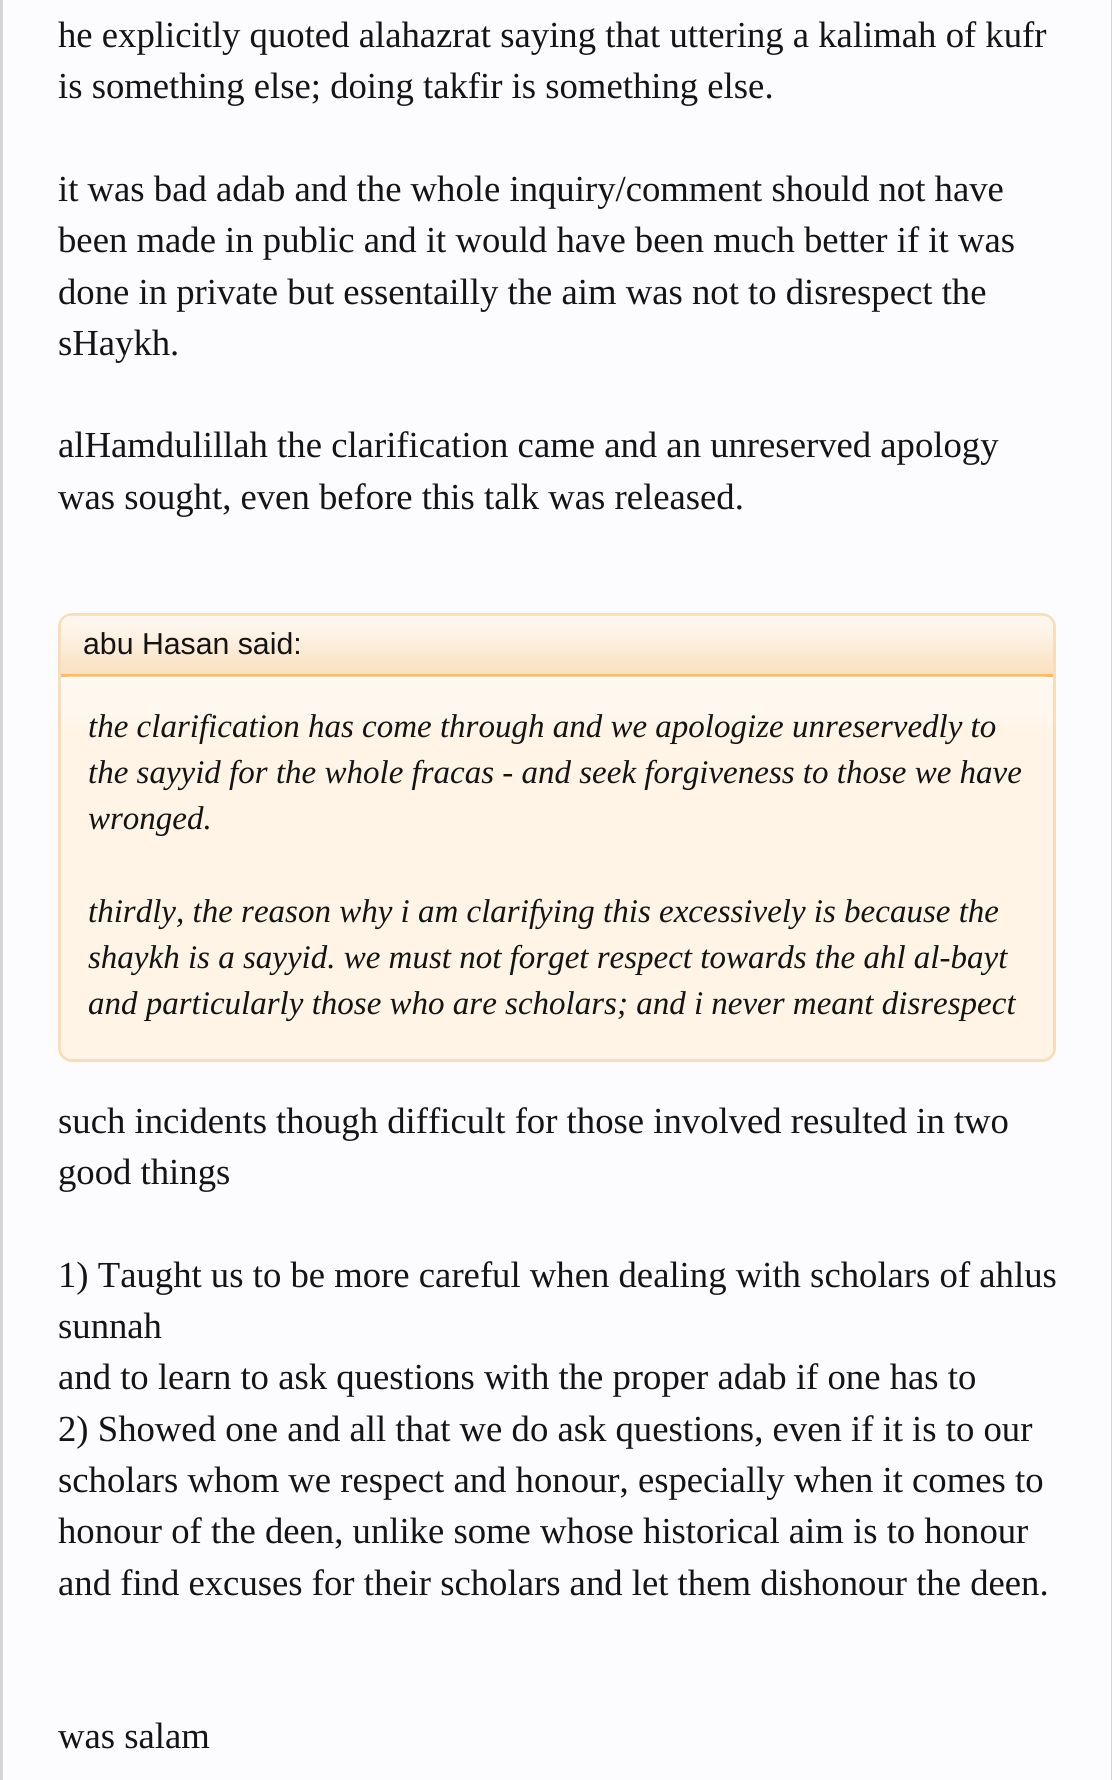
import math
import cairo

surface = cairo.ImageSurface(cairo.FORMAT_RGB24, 1112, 1780)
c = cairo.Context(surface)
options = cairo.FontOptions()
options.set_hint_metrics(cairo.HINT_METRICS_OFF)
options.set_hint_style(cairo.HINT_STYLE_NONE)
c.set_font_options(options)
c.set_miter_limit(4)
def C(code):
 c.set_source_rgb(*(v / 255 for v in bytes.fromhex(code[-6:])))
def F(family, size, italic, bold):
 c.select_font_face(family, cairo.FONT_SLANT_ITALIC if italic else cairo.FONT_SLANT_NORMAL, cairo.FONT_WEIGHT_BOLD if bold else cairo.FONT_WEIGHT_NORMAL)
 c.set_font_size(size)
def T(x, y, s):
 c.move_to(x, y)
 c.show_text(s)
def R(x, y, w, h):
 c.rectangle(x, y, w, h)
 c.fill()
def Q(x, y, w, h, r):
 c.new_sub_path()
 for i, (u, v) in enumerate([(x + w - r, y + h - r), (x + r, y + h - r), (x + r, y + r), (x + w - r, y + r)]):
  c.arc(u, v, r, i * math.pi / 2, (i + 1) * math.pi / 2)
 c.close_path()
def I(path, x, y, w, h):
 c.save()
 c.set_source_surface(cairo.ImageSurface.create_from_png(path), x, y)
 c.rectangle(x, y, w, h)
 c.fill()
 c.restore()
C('fcfcff')
c.paint()
c.rectangle(1.5,-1.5,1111,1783)
C('d5d5d5')
c.set_line_width(3)
c.stroke()
F('Liberation Serif',36.7,0,0)
C('141414')
T(58,47,'he explicitly quoted alahazrat saying that uttering a kalimah of kufr')
T(58,98,'is something else; doing takfir is something else.')
T(58,201,'it was bad adab and the whole inquiry/comment should not have')
T(58,252,'been made in public and it would have been much better if it was')
T(58,304,'done in private but essentailly the aim was not to disrespect the')
T(58,355,'sHaykh.')
T(58,457,'alHamdulillah the clarification came and an unreserved apology')
T(58,509,'was sought, even before this talk was released.')
Q(59.5,614.5,995,446,12.5)
C('f9ddba')
c.stroke()
c.new_path()
c.move_to(72,616)
c.line_to(1042,616)
c.curve_to(1048,616,1053,621,1053,627)
c.line_to(1053,677)
c.line_to(61,677)
c.line_to(61,627)
c.curve_to(61,621,66,616,72,616)
c.close_path()
c.fill()
I('1.png',60,615,993,59)
C('f9bc6d')
R(61,674,992,3)
F('Liberation Sans',30.25,0,0)
C('141414')
T(83,654,'abu Hasan said:')
C('fff4e5')
Q(61,677,992,382,11)
c.fill()
I('2.png',61,676,992,51)
F('Liberation Serif',33,1,0)
C('141414')
T(88,737,'the clarification has come through and we apologize unreservedly to')
T(88,783,'the sayyid for the whole fracas - and seek forgiveness to those we have')
T(88,829,'wronged.')
T(88,922,'thirdly, the reason why i am clarifying this excessively is because the')
T(88,968,'shaykh is a sayyid. we must not forget respect towards the ahl al-bayt')
T(88,1014,'and particularly those who are scholars; and i never meant disrespect')
F('Liberation Serif',36.7,0,0)
T(58,1133,'such incidents though difficult for those involved resulted in two')
T(58,1184,'good things')
T(58,1287,'1) Taught us to be more careful when dealing with scholars of ahlus')
T(58,1338,'sunnah')
T(58,1389,'and to learn to ask questions with the proper adab if one has to')
T(58,1441,'2) Showed one and all that we do ask questions, even if it is to our')
T(58,1492,'scholars whom we respect and honour, especially when it comes to')
T(58,1543,'honour of the deen, unlike some whose historical aim is to honour')
T(58,1595,'and find excuses for their scholars and let them dishonour the deen.')
T(58,1748,'was salam')
surface.write_to_png('o.png')
